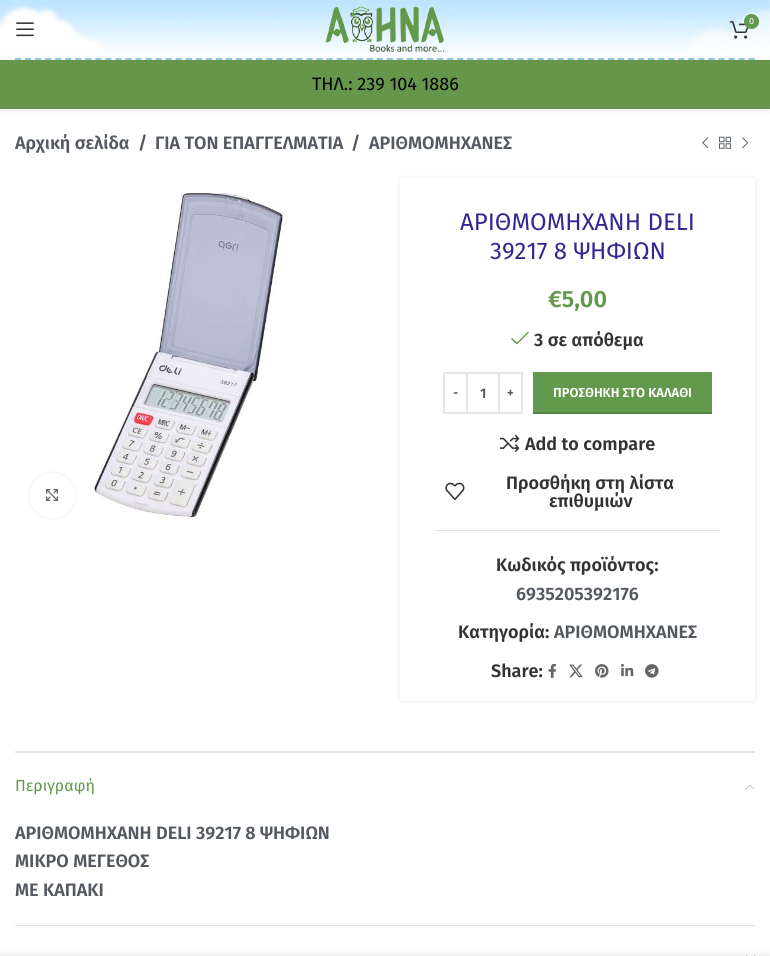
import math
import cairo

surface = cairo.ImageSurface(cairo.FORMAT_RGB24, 770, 956)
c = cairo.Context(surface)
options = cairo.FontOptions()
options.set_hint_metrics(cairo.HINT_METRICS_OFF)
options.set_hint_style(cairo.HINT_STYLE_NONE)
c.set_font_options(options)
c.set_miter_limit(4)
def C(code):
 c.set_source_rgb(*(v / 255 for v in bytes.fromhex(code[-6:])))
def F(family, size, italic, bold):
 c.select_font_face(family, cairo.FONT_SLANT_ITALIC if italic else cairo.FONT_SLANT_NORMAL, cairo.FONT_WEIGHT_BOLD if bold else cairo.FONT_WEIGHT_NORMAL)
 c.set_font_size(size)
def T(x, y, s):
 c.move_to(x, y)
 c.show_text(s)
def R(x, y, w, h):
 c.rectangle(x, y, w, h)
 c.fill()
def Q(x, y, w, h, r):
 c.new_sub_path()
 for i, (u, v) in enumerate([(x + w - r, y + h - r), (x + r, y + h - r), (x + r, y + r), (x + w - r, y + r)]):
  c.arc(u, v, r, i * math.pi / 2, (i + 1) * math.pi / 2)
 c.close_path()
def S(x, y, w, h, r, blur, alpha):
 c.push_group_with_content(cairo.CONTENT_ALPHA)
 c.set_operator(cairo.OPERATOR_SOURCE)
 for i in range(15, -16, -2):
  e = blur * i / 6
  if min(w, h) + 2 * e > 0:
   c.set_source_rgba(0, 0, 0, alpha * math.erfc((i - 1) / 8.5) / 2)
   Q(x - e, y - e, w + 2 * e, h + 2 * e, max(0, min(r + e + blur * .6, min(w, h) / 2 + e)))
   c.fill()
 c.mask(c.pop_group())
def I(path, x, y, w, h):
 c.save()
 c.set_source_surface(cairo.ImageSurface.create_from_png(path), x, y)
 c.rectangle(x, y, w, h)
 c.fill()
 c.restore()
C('ffffff')
c.paint()
I('1.png',0,0,770,55)
c.new_path()
c.move_to(15,59)
c.line_to(755,59)
C('96cde4')
c.set_dash([6,4.05])
c.stroke()
C('000000')
S(0,61,770,49,0,4,.1)
I('2.png',325,6,120,46)
I('3.png',730,21,19,18)
C('63994c')
c.arc(751.5,21.5,7.5,0,2 * math.pi)
c.fill()
F('Fira Sans',9,0,0)
C('ffffff')
T(749,24,'0')
I('4.png',16,22,18,15)
C('65964c')
R(0,60,770,49)
F('Fira Sans',18,0,0)
C('000000')
T(312,90,'ΤΗΛ.: 239 104 1886')
F('Fira Sans SemiBold',18,0,0)
C('54595f')
T(15,149,'Αρχική σελίδα')
T(138,149,'/')
T(155,149,'ΓΙΑ ΤΟΝ ΕΠΑΓΓΕΛΜΑΤΙΑ')
T(351,149,'/')
T(369,149,'ΑΡΙΘΜΟΜΗΧΑΝΕΣ')
I('5.png',702,137,7,12)
I('6.png',719,136,12,13)
I('7.png',742,137,7,12)
C('000000')
S(30,473,45,45,22.5,2.5,.08)
C('ffffff')
c.arc(52.5,495.5,22.5,0,2 * math.pi)
c.fill()
I('8.png',46,489,12,12)
I('9.png',91,192,194,327)
c.save()
c.set_fill_rule(cairo.FILL_RULE_EVEN_ODD)
c.new_path()
c.move_to(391,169)
c.line_to(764,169)
c.line_to(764,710)
c.line_to(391,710)
c.close_path()
c.move_to(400,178)
c.line_to(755,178)
c.line_to(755,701)
c.line_to(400,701)
c.close_path()
c.clip()
C('000000')
S(400,178,355,523,0,2.5,.1)
c.restore()
F('Fira Sans',24,0,0)
C('342694')
T(460,230,'ΑΡΙΘΜΟΜΗΧΑΝΗ DELI')
T(490,259,'39217 8 ΨΗΦΙΩΝ')
F('Fira Sans SemiBold',23.5,0,0)
C('63994c')
T(548,307,'€5,00')
c.new_path()
c.move_to(529,332.5)
c.line_to(528,331.5)
c.line_to(517,342.5)
c.line_to(512,338)
c.line_to(511,339)
c.line_to(517,344.5)
c.close_path()
c.fill()
F('Fira Sans SemiBold',18,0,0)
C('333333')
T(534,346,'3 σε απόθεμα')
c.rectangle(444,373,23,40)
C('e6e6e6')
c.set_dash([])
c.stroke()
F('Fira Sans SemiBold',13,0,0)
C('54595f')
T(453,397,'-')
C('e6e6e6')
R(468,372,30,2)
R(468,412,30,2)
F('Fira Sans SemiBold',14,0,0)
C('54595f')
T(480,398,'1')
c.rectangle(499,373,23,40)
C('e6e6e6')
c.stroke()
F('Fira Sans SemiBold',13,0,0)
C('54595f')
T(507,397,'+')
C('63994c')
R(533,372,179,40)
C('548241')
R(533,412,179,2)
C('ffffff')
T(553,397,'ΠΡΟΣΘΗΚΗ ΣΤΟ ΚΑΛΑΘΙ')
I('10.png',500,434,20,18)
F('Fira Sans SemiBold',18,0,0)
C('333333')
T(525,450,'Add to compare')
I('11.png',445,482,20,18)
T(506,489,'Προσθήκη στη λίστα')
T(549,507,'επιθυμιών')
C('e4e4e4')
R(435,530,285,1)
C('333333')
T(496,571,'Κωδικός προϊόντος:')
C('54595f')
T(516,600,'6935205392176')
C('333333')
T(458,638,'Κατηγορία:')
C('54595f')
T(554,638,'ΑΡΙΘΜΟΜΗΧΑΝΕΣ')
C('333333')
T(491,677,'Share:')
I('12.png',548,663,9,15)
I('13.png',569,664,14,14)
I('14.png',595,664,14,14)
I('15.png',621,663,13,14)
I('16.png',645,664,14,14)
C('e4e4e4')
R(15,751,740,2)
R(15,925,740,1)
F('Fira Sans',16,0,0)
C('63994c')
T(15,791,'Περιγραφή')
I('17.png',745,784,10,6)
F('Fira Sans SemiBold',18,0,0)
C('54595f')
T(15,839,'ΑΡΙΘΜΟΜΗΧΑΝΗ DELI 39217 8 ΨΗΦΙΩΝ')
T(15,867,'ΜΙΚΡΟ ΜΕΓΕΘΟΣ')
T(15,896,'ΜΕ ΚΑΠΑΚΙ')
I('18.png',746,955,10,1)
C('000000')
S(0,956,770,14,0,4.5,.14)
surface.write_to_png('o.png')
